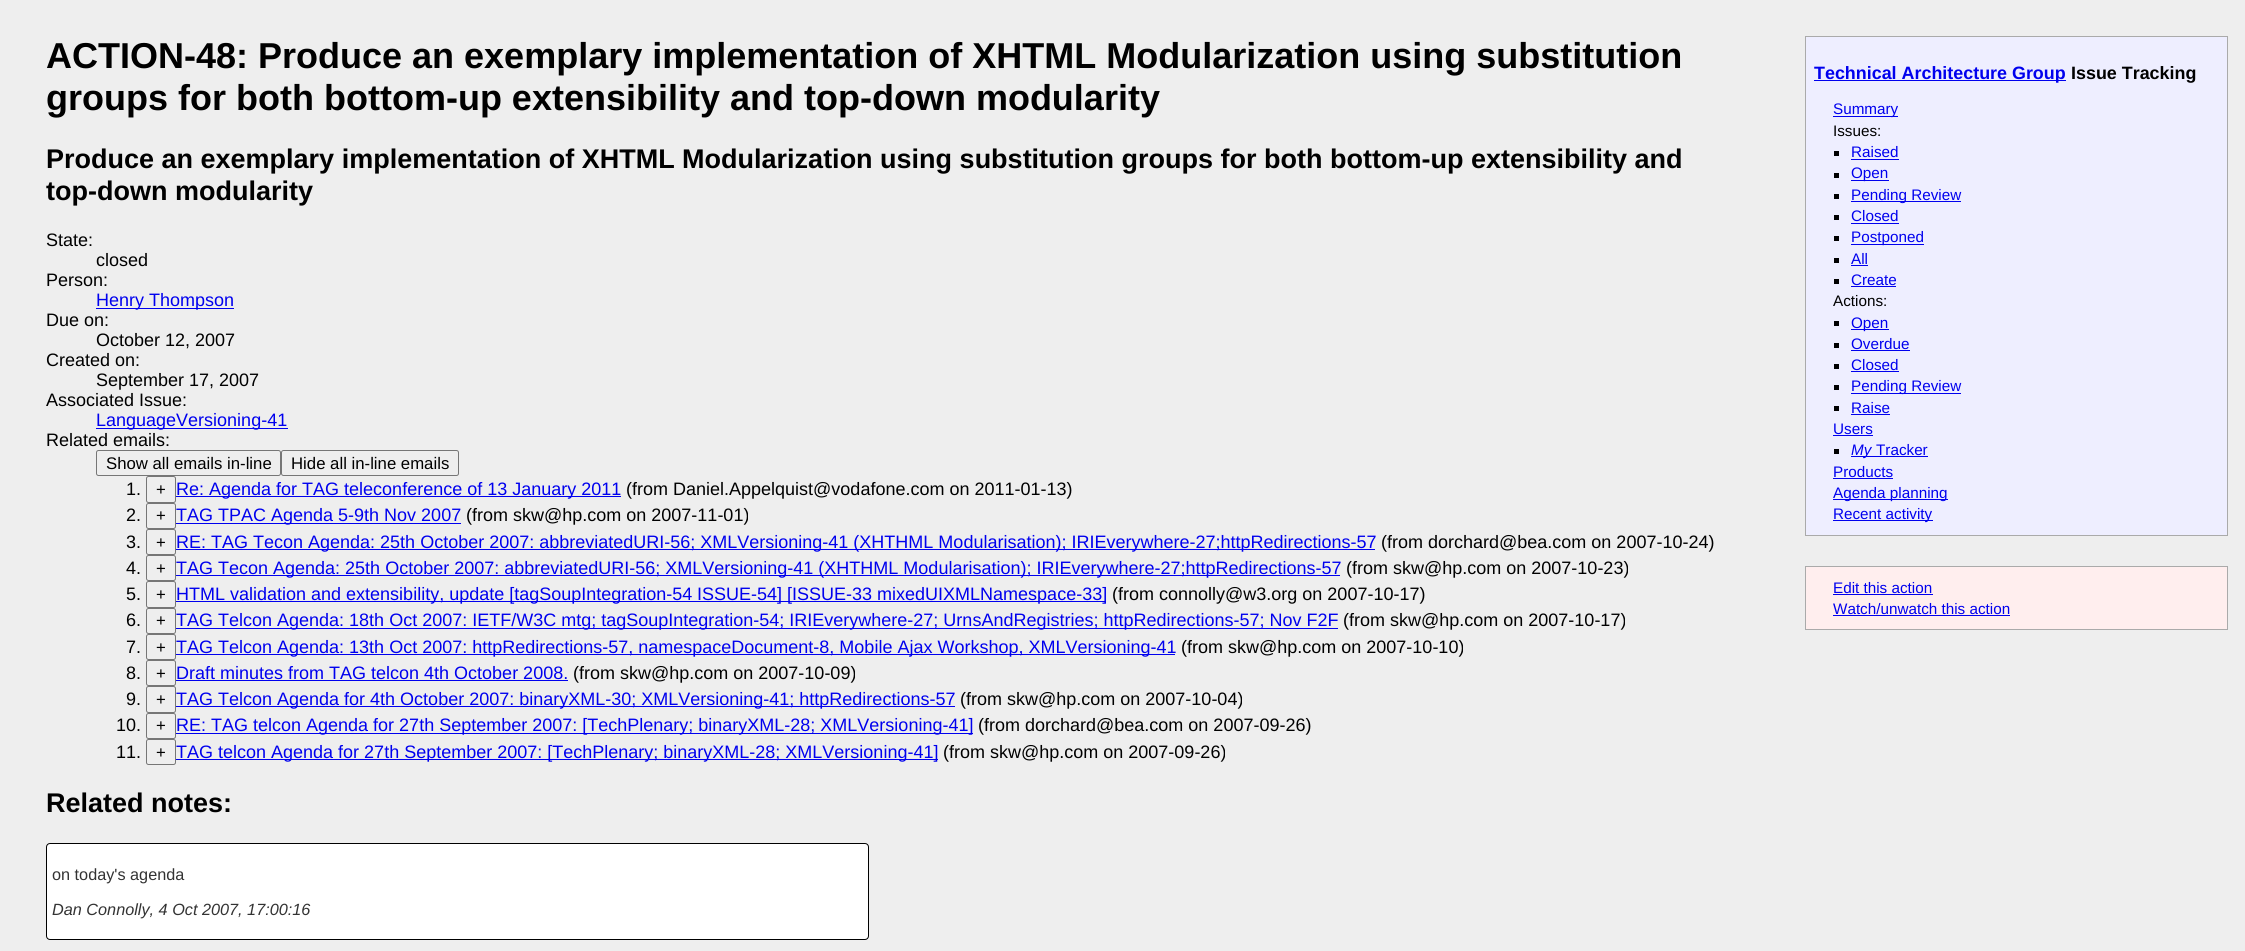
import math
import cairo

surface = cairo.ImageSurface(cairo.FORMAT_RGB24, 2245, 951)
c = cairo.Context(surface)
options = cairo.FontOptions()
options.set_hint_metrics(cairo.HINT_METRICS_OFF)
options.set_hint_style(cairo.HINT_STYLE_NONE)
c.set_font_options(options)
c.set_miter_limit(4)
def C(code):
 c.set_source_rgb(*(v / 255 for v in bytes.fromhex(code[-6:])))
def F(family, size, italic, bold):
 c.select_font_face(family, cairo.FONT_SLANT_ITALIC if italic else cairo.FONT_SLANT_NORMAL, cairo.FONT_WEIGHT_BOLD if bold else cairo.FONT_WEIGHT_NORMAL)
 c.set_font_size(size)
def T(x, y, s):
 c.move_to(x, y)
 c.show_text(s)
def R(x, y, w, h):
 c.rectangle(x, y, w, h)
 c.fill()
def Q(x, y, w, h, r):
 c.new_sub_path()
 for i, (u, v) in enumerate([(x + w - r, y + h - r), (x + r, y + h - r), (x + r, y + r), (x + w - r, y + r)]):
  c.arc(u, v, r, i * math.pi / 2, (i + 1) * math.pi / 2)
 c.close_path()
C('eeeeee')
c.paint()
F('Liberation Sans',36,0,1)
C('000000')
T(46,68,'ACTION-48: Produce an exemplary implementation of XHTML Modularization using substitution')
T(46,110,'groups for both bottom-up extensibility and top-down modularity')
F('Liberation Sans',27,0,1)
T(46,168,'Produce an exemplary implementation of XHTML Modularization using substitution groups for both bottom-up extensibility and')
T(46,200,'top-down modularity')
F('Liberation Sans',18,0,0)
T(46,246,'State:')
T(96,266,'closed')
T(46,286,'Person:')
C('0000ee')
R(96,308,138,1)
T(96,306,'Henry Thompson')
C('000000')
T(46,326,'Due on:')
T(96,346,'October 12, 2007')
T(46,366,'Created on:')
T(96,386,'September 17, 2007')
T(46,406,'Associated Issue:')
C('0000ee')
R(96,428,192,1)
T(96,426,'LanguageVersioning-41')
C('000000')
T(46,446,'Related emails:')
Q(96.5,450.5,184,25,2)
C('767676')
c.set_line_width(1)
c.stroke()
F('Liberation Sans',16.75,0,0)
C('000000')
T(106,469,'Show all emails in-line')
Q(281.5,450.5,177,25,2)
C('767676')
c.stroke()
C('000000')
T(291,469,'Hide all in-line emails')
F('Liberation Sans',18,0,0)
T(126,495,'1.')
Q(146.5,476.5,29,26,2)
C('767676')
c.stroke()
F('Liberation Sans',16.75,0,0)
C('000000')
T(156,495,'+')
C('0000ee')
R(176,496,445,1)
F('Liberation Sans',18,0,0)
T(176,495,'Re: Agenda for TAG teleconference of 13 January 2011')
C('000000')
T(626,495,'(from Daniel.Appelquist@vodafone.com on 2011-01-13)')
T(126,521,'2.')
Q(146.5,503.5,29,25,2)
C('767676')
c.stroke()
F('Liberation Sans',16.75,0,0)
C('000000')
T(156,521,'+')
C('0000ee')
R(176,523,285,1)
F('Liberation Sans',18,0,0)
T(176,521,'TAG TPAC Agenda 5-9th Nov 2007')
C('000000')
T(466,521,'(from skw@hp.com on 2007-11-01)')
T(126,548,'3.')
Q(146.5,529.5,29,25,2)
C('767676')
c.stroke()
F('Liberation Sans',16.75,0,0)
C('000000')
T(156,548,'+')
C('0000ee')
R(176,549,1199,1)
F('Liberation Sans',18,0,0)
T(176,548,'RE: TAG Tecon Agenda: 25th October 2007: abbreviatedURI-56; XMLVersioning-41 (XHTHML Modularisation); IRIEverywhere-27;httpRedirections-57')
C('000000')
T(1381,548,'(from dorchard@bea.com on 2007-10-24)')
T(126,574,'4.')
Q(146.5,555.5,29,25,2)
C('767676')
c.stroke()
F('Liberation Sans',16.75,0,0)
C('000000')
T(156,574,'+')
C('0000ee')
R(176,575,1164,1)
F('Liberation Sans',18,0,0)
T(176,574,'TAG Tecon Agenda: 25th October 2007: abbreviatedURI-56; XMLVersioning-41 (XHTHML Modularisation); IRIEverywhere-27;httpRedirections-57')
C('000000')
T(1346,574,'(from skw@hp.com on 2007-10-23)')
T(126,600,'5.')
Q(146.5,581.5,29,26,2)
C('767676')
c.stroke()
F('Liberation Sans',16.75,0,0)
C('000000')
T(156,600,'+')
C('0000ee')
R(176,601,930,1)
F('Liberation Sans',18,0,0)
T(176,600,'HTML validation and extensibility, update [tagSoupIntegration-54')
T(697,600,'ISSUE-54] [ISSUE-33 mixedUIXMLNamespace-33]')
C('000000')
T(1112,600,'(from connolly@w3.org on 2007-10-17)')
T(126,626,'6.')
Q(146.5,608.5,29,25,2)
C('767676')
c.stroke()
F('Liberation Sans',16.75,0,0)
C('000000')
T(156,626,'+')
C('0000ee')
R(176,628,1162,1)
F('Liberation Sans',18,0,0)
T(176,626,'TAG Telcon Agenda: 18th Oct 2007: IETF/W3C mtg; tagSoupIntegration-54; IRIEverywhere-27; UrnsAndRegistries; httpRedirections-57; Nov F2F')
C('000000')
T(1343,626,'(from skw@hp.com on 2007-10-17)')
T(126,653,'7.')
Q(146.5,634.5,29,25,2)
C('767676')
c.stroke()
F('Liberation Sans',16.75,0,0)
C('000000')
T(156,653,'+')
C('0000ee')
R(176,654,999,1)
F('Liberation Sans',18,0,0)
T(176,653,'TAG Telcon Agenda: 13th Oct 2007: httpRedirections-57, namespaceDocument-8, Mobile Ajax Workshop, XMLVersioning-41')
C('000000')
T(1181,653,'(from skw@hp.com on 2007-10-10)')
T(126,679,'8.')
Q(146.5,660.5,29,25,2)
C('767676')
c.stroke()
F('Liberation Sans',16.75,0,0)
C('000000')
T(156,679,'+')
F('Liberation Sans',18,0,0)
C('0000ee')
T(176,679,'Draft minutes from TAG telcon 4th October 2008.')
R(176,680,392,1)
C('000000')
T(573,679,'(from skw@hp.com on 2007-10-09)')
T(126,705,'9.')
Q(146.5,686.5,29,26,2)
C('767676')
c.stroke()
F('Liberation Sans',16.75,0,0)
C('000000')
T(156,705,'+')
C('0000ee')
R(176,706,779,1)
F('Liberation Sans',18,0,0)
T(176,705,'TAG Telcon Agenda for 4th October 2007: binaryXML-30; XMLVersioning-41; httpRedirections-57')
C('000000')
T(960,705,'(from skw@hp.com on 2007-10-04)')
T(116,731,'10.')
Q(146.5,713.5,29,25,2)
C('767676')
c.stroke()
F('Liberation Sans',16.75,0,0)
C('000000')
T(156,731,'+')
C('0000ee')
R(176,733,797,1)
F('Liberation Sans',18,0,0)
T(176,731,'RE: TAG telcon Agenda for 27th September 2007: [TechPlenary; binaryXML-28; XMLVersioning-41]')
C('000000')
T(978,731,'(from dorchard@bea.com on 2007-09-26)')
T(116,758,'11.')
Q(146.5,739.5,29,25,2)
C('767676')
c.stroke()
F('Liberation Sans',16.75,0,0)
C('000000')
T(156,758,'+')
C('0000ee')
R(176,759,762,1)
F('Liberation Sans',18,0,0)
T(176,758,'TAG telcon Agenda for 27th September 2007: [TechPlenary; binaryXML-28; XMLVersioning-41]')
C('000000')
T(943,758,'(from skw@hp.com on 2007-09-26)')
F('Liberation Sans',27,0,1)
T(46,812,'Related notes:')
C('ffffff')
Q(46.5,843.5,822,96,3.5)
c.fill_preserve()
C('000000')
c.stroke()
F('Liberation Sans',16.25,0,0)
C('333333')
T(52,880,'on today\'s agenda')
F('Liberation Sans',16.25,1,0)
T(52,915,'Dan Connolly, 4 Oct 2007, 17:00:16')
C('eeeeff')
c.rectangle(1805.5,36.5,422,499)
c.fill_preserve()
C('aaaaaa')
c.stroke()
C('0000ee')
R(1814,80,252,1)
F('Liberation Sans',17.9,0,1)
T(1814,79,'Technical Architecture Group')
C('000000')
T(2071,79,'Issue Tracking')
C('0000ee')
R(1833,116,65,1)
F('Liberation Sans',15.25,0,0)
T(1833,114,'Summary')
C('000000')
T(1833,136,'Issues:')
R(1834,151,5,5)
C('0000ee')
T(1851,157,'Raised')
R(1851,159,48,1)
C('000000')
R(1834,173,5,5)
C('0000ee')
R(1851,180,38,1)
T(1851,178,'Open')
C('000000')
R(1834,194,5,5)
C('0000ee')
R(1851,201,110,1)
T(1851,200,'Pending Review')
C('000000')
R(1834,215,5,5)
C('0000ee')
T(1851,221,'Closed')
R(1851,223,48,1)
C('000000')
R(1834,236,5,5)
C('0000ee')
R(1851,244,73,1)
T(1851,242,'Postponed')
C('000000')
R(1834,258,5,5)
C('0000ee')
T(1851,264,'All')
R(1851,265,17,1)
C('000000')
R(1834,279,5,5)
C('0000ee')
T(1851,285,'Create')
R(1851,286,45,1)
C('000000')
T(1833,306,'Actions:')
R(1834,321,5,5)
C('0000ee')
R(1851,329,38,1)
T(1851,328,'Open')
C('000000')
R(1834,343,5,5)
C('0000ee')
T(1851,349,'Overdue')
R(1851,350,59,1)
C('000000')
R(1834,364,5,5)
C('0000ee')
T(1851,370,'Closed')
R(1851,371,48,1)
C('000000')
R(1834,385,5,5)
C('0000ee')
R(1851,393,110,1)
T(1851,391,'Pending Review')
C('000000')
R(1834,406,5,5)
C('0000ee')
T(1851,413,'Raise')
R(1851,414,39,1)
T(1833,434,'Users')
R(1833,435,40,1)
C('000000')
R(1834,449,5,5)
C('0000ee')
R(1851,456,20,1)
F('Liberation Sans',15.25,1,0)
T(1851,455,'My')
R(1871,456,57,1)
F('Liberation Sans',15.25,0,0)
T(1876,455,'Tracker')
T(1833,477,'Products')
R(1833,478,60,1)
R(1833,499,115,1)
T(1833,498,'Agenda planning')
R(1833,520,100,1)
T(1833,519,'Recent activity')
C('ffeeee')
c.rectangle(1805.5,566.5,422,63)
c.fill_preserve()
C('aaaaaa')
c.stroke()
C('0000ee')
T(1833,593,'Edit this action')
R(1833,594,100,1)
T(1833,614,'Watch/unwatch this action')
R(1833,615,177,1)
surface.write_to_png('o.png')
